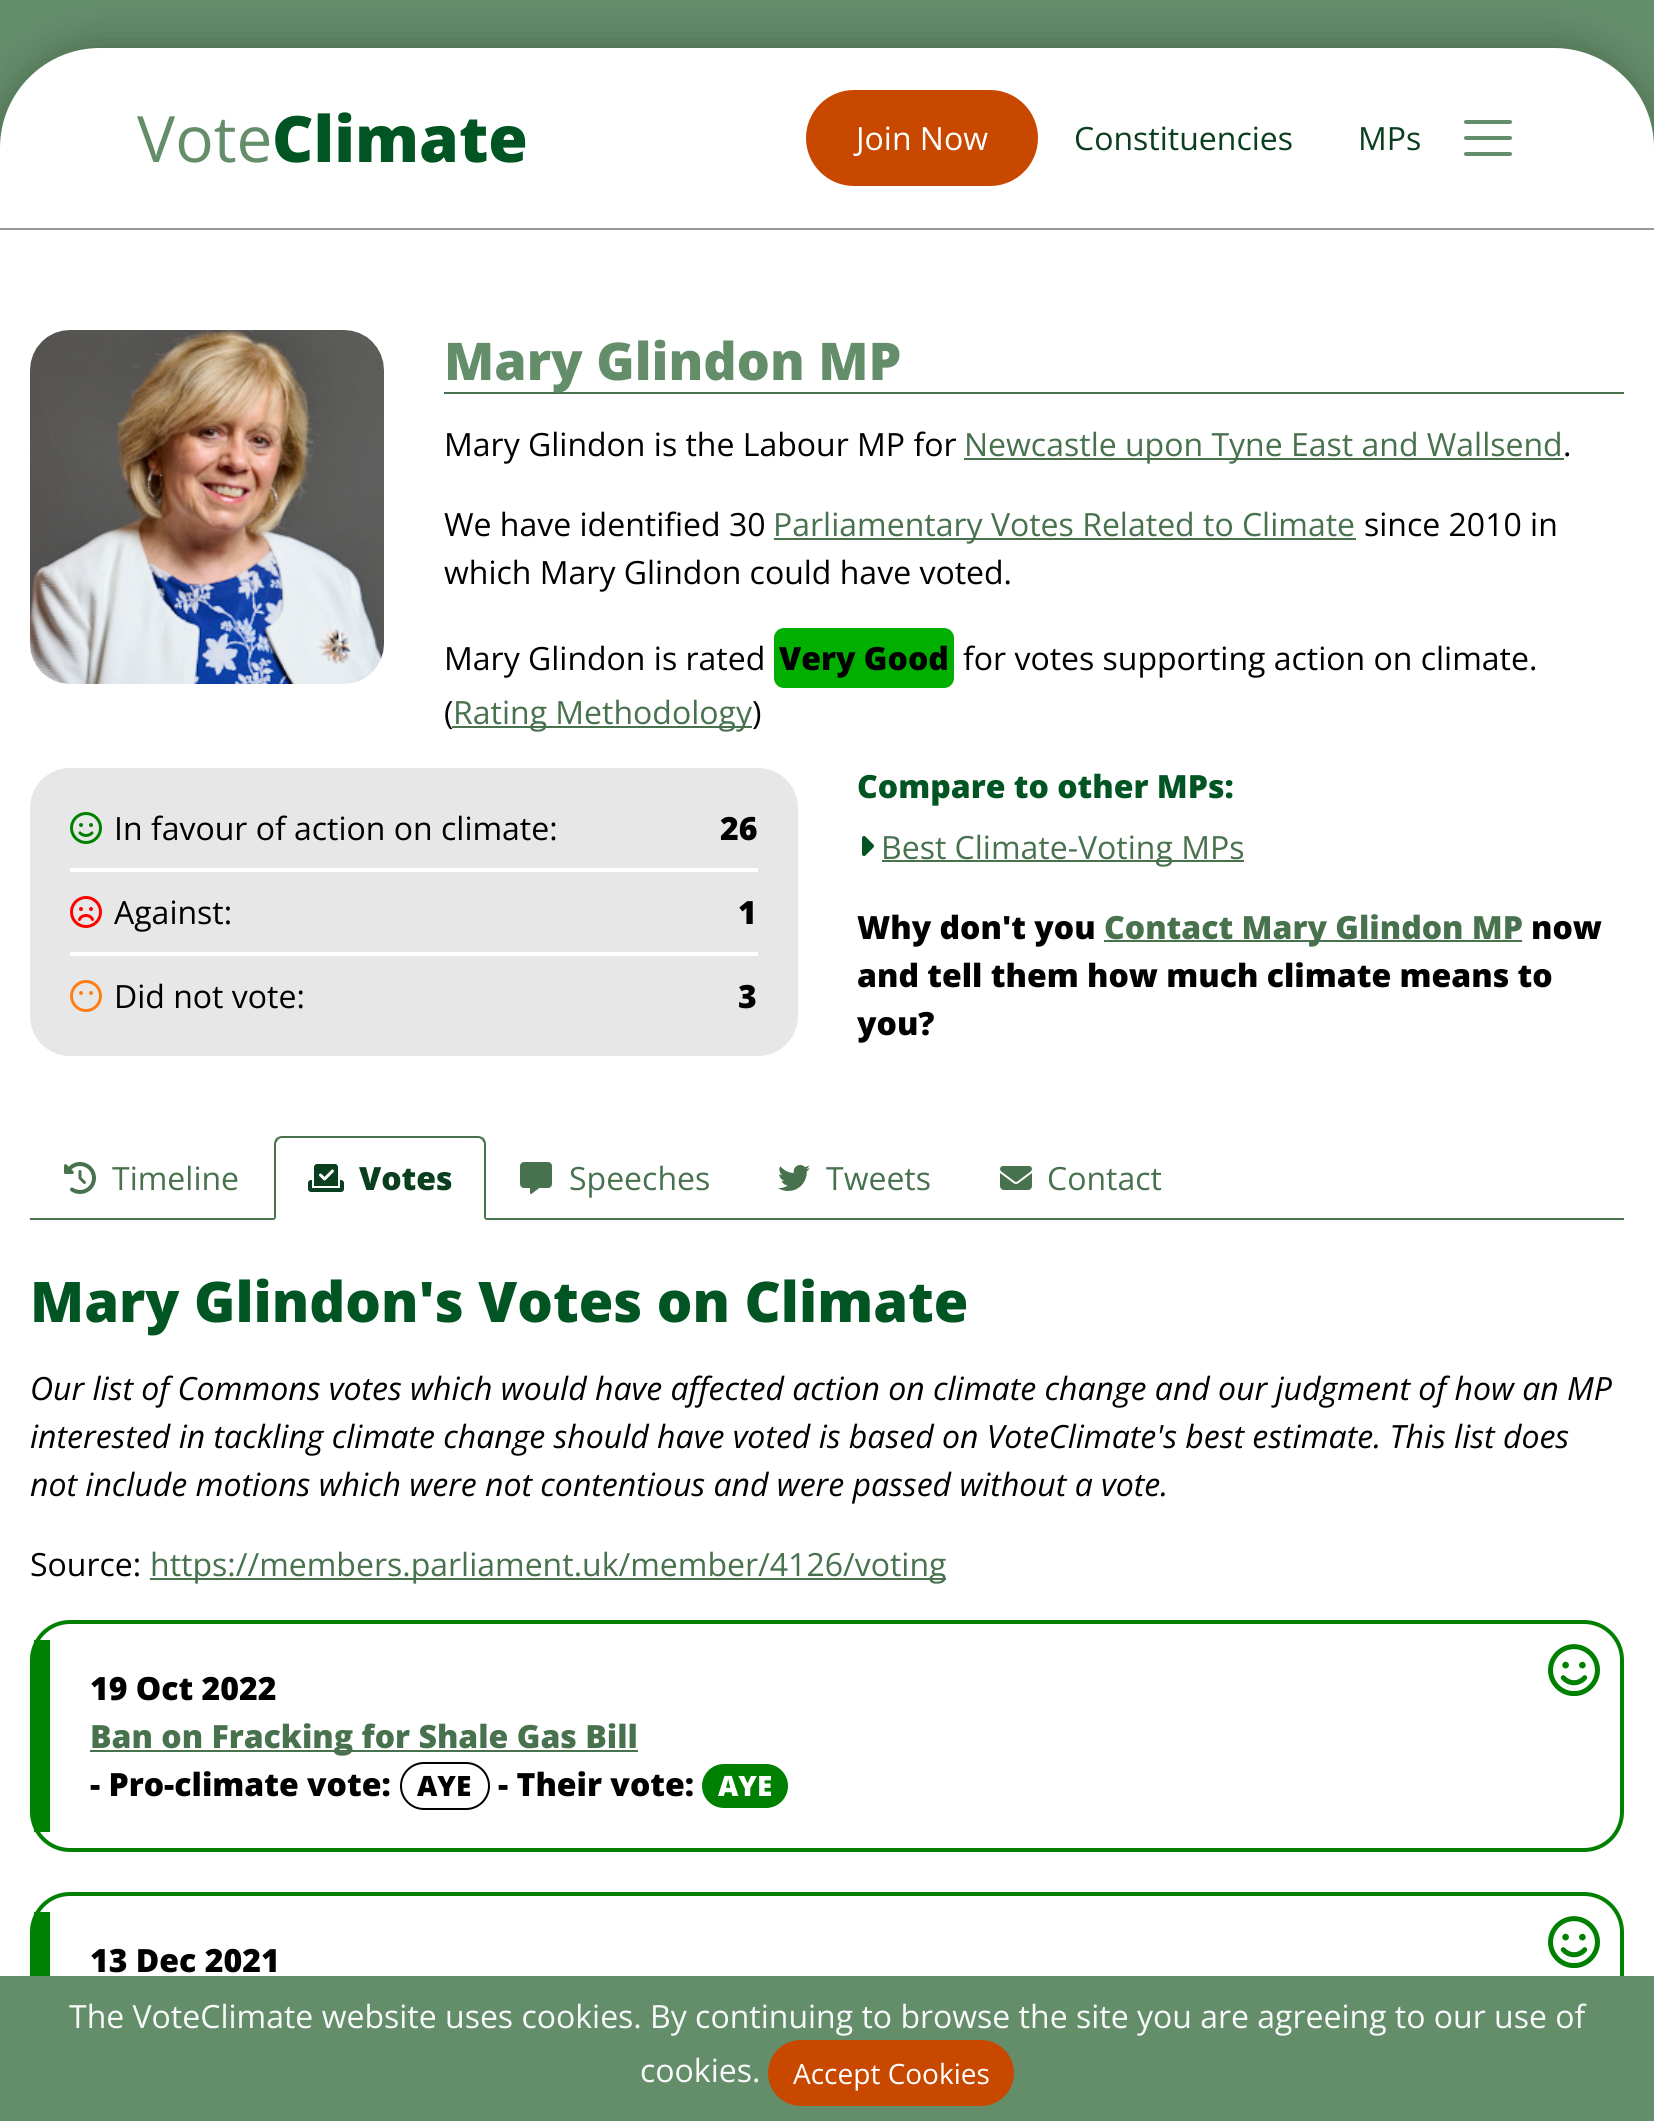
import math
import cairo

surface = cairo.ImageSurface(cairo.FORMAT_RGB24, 1654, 2121)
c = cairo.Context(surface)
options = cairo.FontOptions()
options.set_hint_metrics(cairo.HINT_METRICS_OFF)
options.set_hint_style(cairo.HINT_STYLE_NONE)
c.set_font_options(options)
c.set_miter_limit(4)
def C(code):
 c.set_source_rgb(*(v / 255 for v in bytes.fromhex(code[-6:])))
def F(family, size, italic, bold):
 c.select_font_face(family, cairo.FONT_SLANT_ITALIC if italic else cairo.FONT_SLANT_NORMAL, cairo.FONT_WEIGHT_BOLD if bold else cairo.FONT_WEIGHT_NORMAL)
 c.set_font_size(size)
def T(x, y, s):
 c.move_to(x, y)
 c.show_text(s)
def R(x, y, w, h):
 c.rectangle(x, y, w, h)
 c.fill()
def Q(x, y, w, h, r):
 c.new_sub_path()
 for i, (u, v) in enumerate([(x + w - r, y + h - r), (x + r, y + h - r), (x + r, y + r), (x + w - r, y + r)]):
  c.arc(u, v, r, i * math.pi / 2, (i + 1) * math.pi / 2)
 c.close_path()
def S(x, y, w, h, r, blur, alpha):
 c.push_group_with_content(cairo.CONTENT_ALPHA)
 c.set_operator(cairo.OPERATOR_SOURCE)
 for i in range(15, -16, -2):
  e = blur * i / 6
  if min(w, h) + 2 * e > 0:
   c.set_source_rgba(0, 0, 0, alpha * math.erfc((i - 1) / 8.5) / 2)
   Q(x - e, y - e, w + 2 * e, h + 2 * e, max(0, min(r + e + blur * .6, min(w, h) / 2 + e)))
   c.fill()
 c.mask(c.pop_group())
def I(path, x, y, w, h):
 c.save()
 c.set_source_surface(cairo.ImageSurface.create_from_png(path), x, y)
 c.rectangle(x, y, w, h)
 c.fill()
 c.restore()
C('648d6a')
c.paint()
C('000000')
S(0,48,1654,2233,100,20,.3)
C('ffffff')
Q(0,48,1654,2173,100)
c.fill()
C('999999')
R(0,228,1654,2)
F('Open Sans',64,0,0)
C('648d6a')
T(137,162,'Vote')
F('Open Sans ExtraBold',64,0,0)
C('015522')
T(272,162,'Climate')
C('c84800')
Q(806,90,232,96,48)
c.fill()
F('Open Sans',32,0,0)
C('ffffff')
T(856,150,'Join Now')
C('093e1e')
T(1074,150,'Constituencies')
T(1358,150,'MPs')
c.new_path()
c.move_to(1466,122)
c.line_to(1510,122)
c.move_to(1466,138)
c.line_to(1510,138)
c.move_to(1466,154)
c.line_to(1510,154)
C('648d6a')
c.set_line_width(4)
c.set_line_cap(cairo.LINE_CAP_ROUND)
c.stroke()
I('1.png',30,330,354,354)
C('48714e')
R(444,392,1180,2)
F('Open Sans ExtraBold',52,0,0)
C('648d6a')
T(444,380,'Mary Glindon MP')
F('Open Sans',32,0,0)
C('000000')
T(444,456,'Mary Glindon is the Labour MP for')
C('48714e')
R(964,458,600,2)
T(964,456,'Newcastle upon Tyne East and Wallsend')
C('000000')
T(1563,456,'.')
T(444,536,'We have identified 30')
C('48714e')
R(774,538,582,2)
T(773,536,'Parliamentary Votes Related to Climate')
C('000000')
T(1364,536,'since 2010 in')
T(444,584,'which Mary Glindon could have voted.')
T(444,670,'Mary Glindon is rated')
C('00af00')
Q(774,628,180,60,10)
c.fill()
F('Open Sans ExtraBold',32,0,0)
C('000000')
T(779,670,'Very Good')
F('Open Sans',32,0,0)
T(963,670,'for votes supporting action on climate.')
T(444,724,'(')
C('48714e')
R(452,726,300,2)
T(453,724,'Rating Methodology')
C('000000')
T(752,724,')')
C('e7e7e7')
Q(30,768,768,288,40)
c.fill()
C('ffffff')
R(70,868,688,4)
I('2.png',70,812,32,32)
C('000000')
T(114,840,'In favour of action on climate:')
F('Open Sans ExtraBold',32,0,0)
T(720,840,'26')
C('ffffff')
R(70,952,688,4)
I('3.png',70,896,32,32)
F('Open Sans',32,0,0)
C('000000')
T(114,924,'Against:')
F('Open Sans ExtraBold',32,0,0)
T(738,924,'1')
I('4.png',70,980,32,32)
F('Open Sans',32,0,0)
T(114,1008,'Did not vote:')
F('Open Sans ExtraBold',32,0,0)
T(738,1008,'3')
C('015522')
T(857,798,'Compare to other MPs:')
I('5.png',862,836,12,20)
C('48714e')
R(882,860,362,2)
F('Open Sans',32,0,0)
T(881,859,'Best Climate-Voting MPs')
F('Open Sans ExtraBold',32,0,0)
C('000000')
T(857,939,'Why don\'t you')
C('48714e')
R(1104,940,418,2)
T(1104,939,'Contact Mary Glindon MP')
C('000000')
T(1531,939,'now')
T(857,987,'and tell them how much climate means to')
T(857,1035,'you?')
C('48714e')
R(30,1218,1594,2)
I('6.png',64,1162,32,32)
F('Open Sans',32,0,0)
T(112,1190,'Timeline')
C('ffffff')
c.new_path()
c.move_to(282,1136)
c.line_to(478,1136)
c.curve_to(482.5,1136,486,1139.5,486,1144)
c.line_to(486,1220)
c.line_to(274,1220)
c.line_to(274,1144)
c.curve_to(274,1139.5,277.5,1136,282,1136)
c.close_path()
c.fill()
C('48714e')
c.new_path()
c.move_to(282,1136)
c.curve_to(280,1136,278,1137,276,1138)
c.line_to(278,1140)
c.curve_to(279,1139,280,1138,282,1138)
c.line_to(478,1138)
c.curve_to(480,1138,481,1139,482,1140)
c.line_to(484,1138)
c.curve_to(482,1137,480,1136,478,1136)
c.close_path()
c.fill()
c.new_path()
c.move_to(486,1220)
c.line_to(486,1144)
c.curve_to(486,1142,485,1140,484,1138)
c.line_to(482,1140)
c.line_to(484,1143)
c.line_to(484,1218)
c.close_path()
c.fill()
c.new_path()
c.move_to(274,1220)
c.line_to(276,1218)
c.line_to(276,1143)
c.line_to(278,1140)
c.line_to(276,1138)
c.curve_to(275,1140,274,1142,274,1144)
c.close_path()
c.fill()
I('7.png',308,1164,36,28)
F('Open Sans ExtraBold',32,0,0)
C('093e1e')
T(359,1190,'Votes')
I('8.png',520,1162,32,32)
F('Open Sans',32,0,0)
C('48714e')
T(569,1190,'Speeches')
I('9.png',778,1165,32,26)
T(826,1190,'Tweets')
I('10.png',1000,1166,32,24)
T(1047,1190,'Contact')
F('Open Sans ExtraBold',56,0,0)
C('015522')
T(30,1322,'Mary Glindon\'s Votes on Climate')
F('Open Sans',32,1,0)
C('000000')
T(30,1400,'Our list of Commons votes which would have affected action on climate change and our judgment of how an MP')
T(30,1448,'interested in tackling climate change should have voted is based on VoteClimate\'s best estimate. This list does')
T(30,1496,'not include motions which were not contentious and were passed without a vote.')
F('Open Sans',32,0,0)
T(30,1576,'Source:')
C('48714e')
R(150,1578,796,2)
T(150,1576,'https://members.parliament.uk/member/4126/voting')
I('11.png',1548,1644,52,52)
Q(32,1622,1590,228,38)
C('008000')
c.set_line_cap(cairo.LINE_CAP_BUTT)
c.stroke()
R(34,1640,16,192)
F('Open Sans ExtraBold',32,0,0)
C('000000')
T(90,1700,'19 Oct 2022')
C('48714e')
R(90,1750,548,2)
T(90,1748,'Ban on Fracking for Shale Gas Bill')
C('000000')
T(90,1796,'- Pro-climate vote:')
Q(401,1763,88,46,23)
c.set_line_width(2)
c.stroke()
F('Open Sans ExtraBold',28,0,0)
T(417,1796,'AYE')
F('Open Sans ExtraBold',32,0,0)
T(498,1796,'- Their vote:')
C('008000')
Q(702,1764,86,44,22)
c.fill()
F('Open Sans ExtraBold',28,0,0)
C('ffffff')
T(718,1796,'AYE')
I('11.png',1548,1916,52,52)
Q(32,1894,1590,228,38)
C('008000')
c.set_line_width(4)
c.stroke()
R(34,1912,16,64)
F('Open Sans ExtraBold',32,0,0)
C('000000')
T(90,1972,'13 Dec 2021')
C('648d6a')
R(0,1976,1654,145)
F('Open Sans',32,0,0)
C('f8f9fa')
T(69,2028,'The VoteClimate website uses cookies. By continuing to browse the site you are agreeing to our use of')
T(640,2082,'cookies.')
C('c84800')
Q(768,2040,246,66,33)
c.fill()
F('Open Sans',28,0,0)
C('ffffff')
T(793,2084,'Accept Cookies')
surface.write_to_png('o.png')
